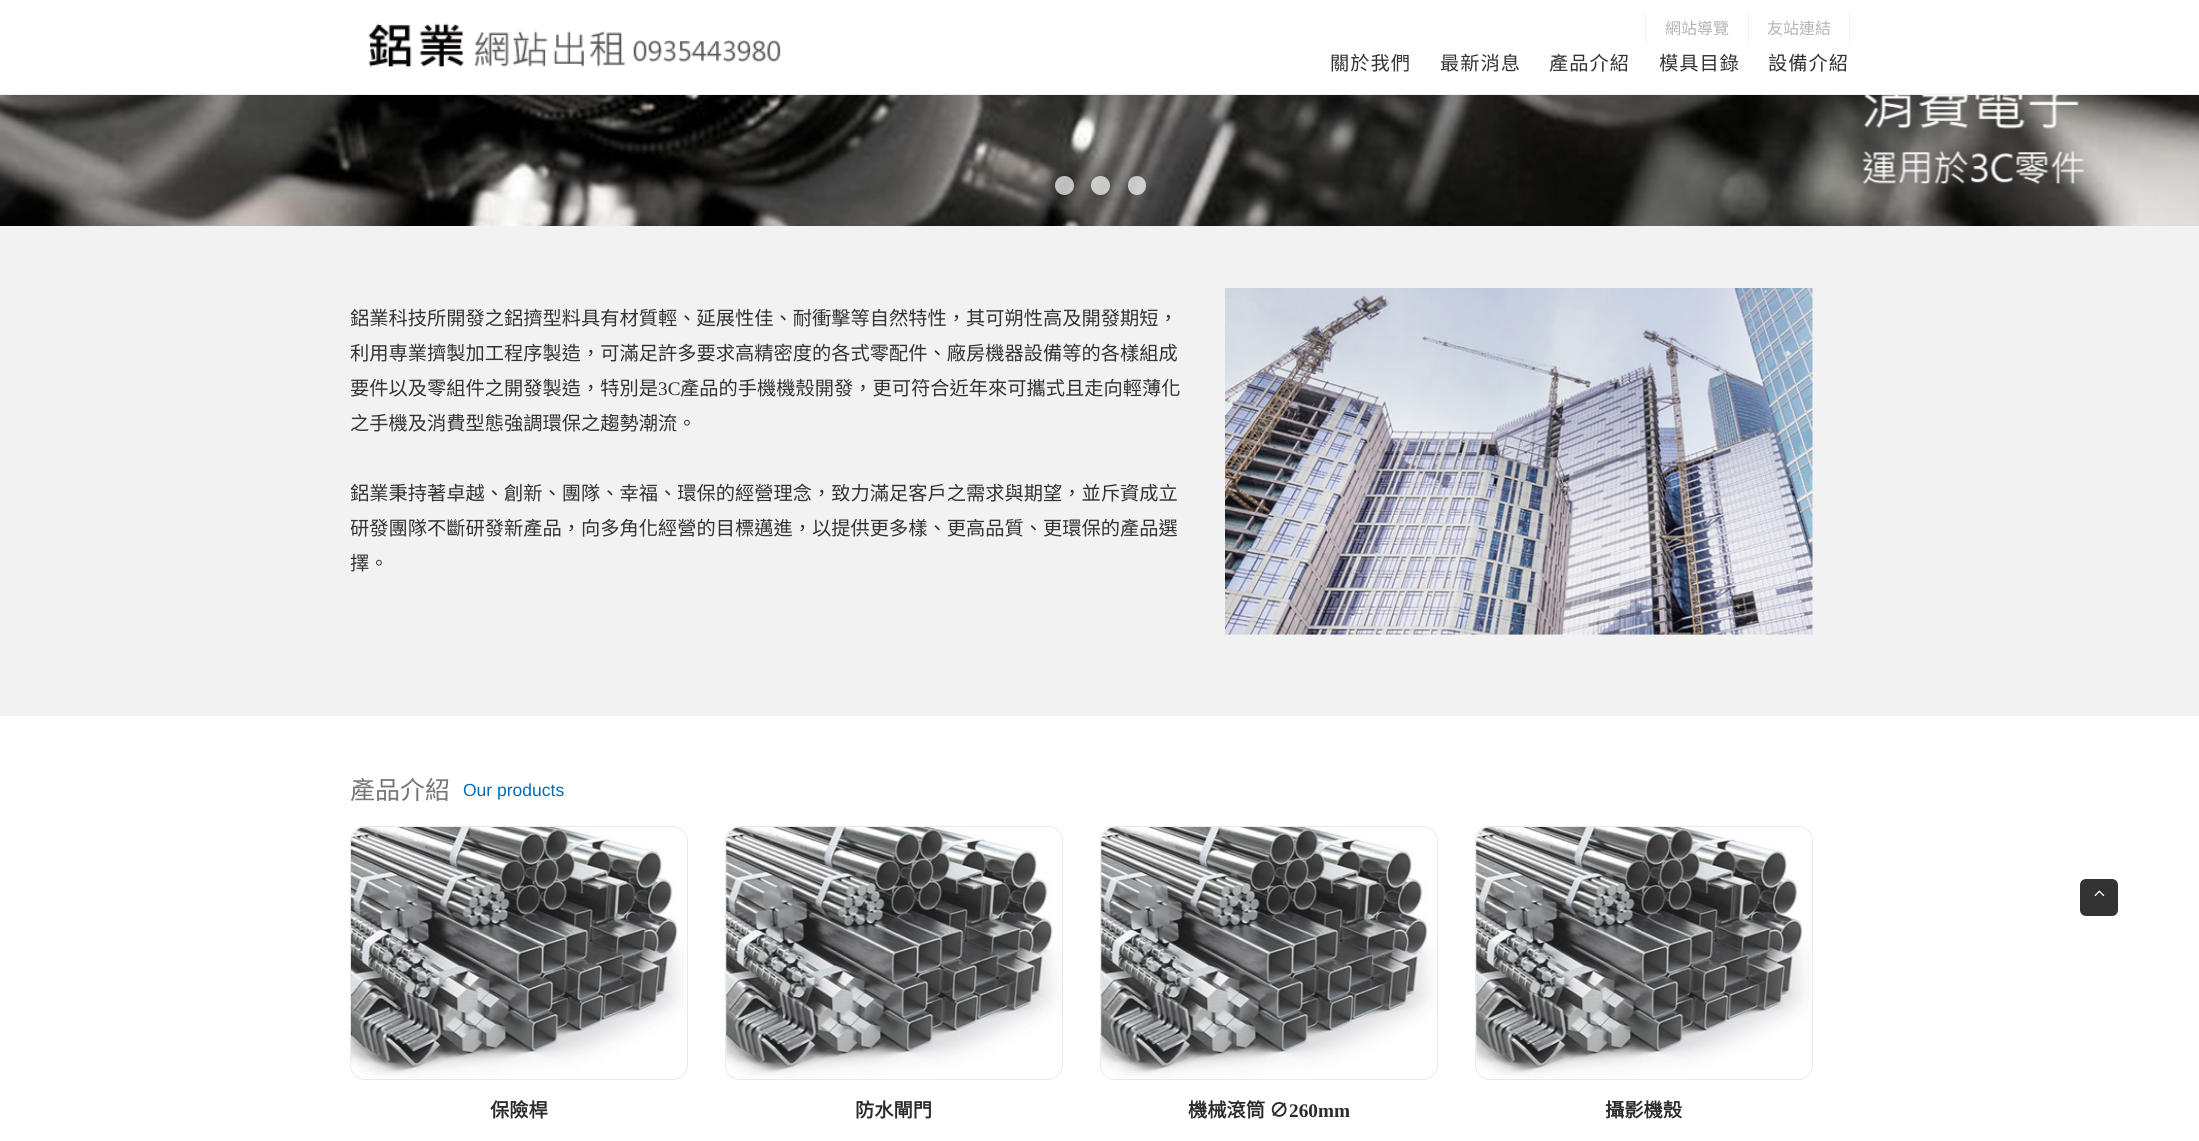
import math
import cairo

surface = cairo.ImageSurface(cairo.FORMAT_RGB24, 2199, 1141)
c = cairo.Context(surface)
options = cairo.FontOptions()
options.set_hint_metrics(cairo.HINT_METRICS_OFF)
options.set_hint_style(cairo.HINT_STYLE_NONE)
c.set_font_options(options)
c.set_miter_limit(4)
def C(code):
 c.set_source_rgb(*(v / 255 for v in bytes.fromhex(code[-6:])))
def F(family, size, italic, bold):
 c.select_font_face(family, cairo.FONT_SLANT_ITALIC if italic else cairo.FONT_SLANT_NORMAL, cairo.FONT_WEIGHT_BOLD if bold else cairo.FONT_WEIGHT_NORMAL)
 c.set_font_size(size)
def T(x, y, s):
 c.move_to(x, y)
 c.show_text(s)
def L(x, y, s, letter, word):
 c.move_to(x, y)
 for ch in s:
  c.show_text(ch)
  c.rel_move_to(letter + word * (ch == ' '), 0)
def R(x, y, w, h):
 c.rectangle(x, y, w, h)
 c.fill()
def Q(x, y, w, h, r):
 c.new_sub_path()
 for i, (u, v) in enumerate([(x + w - r, y + h - r), (x + r, y + h - r), (x + r, y + r), (x + w - r, y + r)]):
  c.arc(u, v, r, i * math.pi / 2, (i + 1) * math.pi / 2)
 c.close_path()
def I(path, x, y, w, h):
 c.save()
 c.set_source_surface(cairo.ImageSurface.create_from_png(path), x, y)
 c.rectangle(x, y, w, h)
 c.fill()
 c.restore()
C('ffffff')
c.paint()
C('f2f2f2')
R(0,94,2199,1)
I('1.png',368,23,413,44)
R(1645,13,1,31)
F('Noto Sans CJK TC',16,0,0)
C('b5b5b5')
T(1665,34,'網站導覽')
C('f2f2f2')
R(1849,13,1,31)
R(1748,13,1,31)
C('b5b5b5')
T(1767,34,'友站連結')
F('Noto Sans CJK TC',19.25,0,0)
C('333333')
L(1330,70,'關於我們',1,0)
L(1440,70,'最新消息',1,0)
L(1549,70,'產品介紹',1,0)
L(1659,70,'模具目錄',1,0)
L(1768,70,'設備介紹',1,0)
I('2.png',0,95,2199,131)
c.set_source_rgba(1,1,1,0.7)
c.arc(1064.5,185.5,9.5,0,2 * math.pi)
c.fill()
c.arc(1100.5,185.5,9.5,0,2 * math.pi)
c.fill()
Q(1128,176,18,19,9)
c.fill()
C('f2f2f2')
R(0,226,2199,490)
C('333333')
T(350,325,'鋁業科技所開發之鋁擠型料具有材質輕、延展性佳、耐衝擊等自然特性，其可朔性高及開發期短，')
T(350,360,'利用専業擠製加工程序製造，可滿足許多要求高精密度的各式零配件、廠房機器設備等的各樣組成')
T(350,395,'要件以及零組件之開發製造，特別是')
F('Liberation Serif',19.25,0,0)
T(658,395,'3C')
F('Noto Sans CJK TC',19.25,0,0)
T(680,395,'產品的手機機殼開發，更可符合近年來可攜式且走向輕薄化')
T(350,430,'之手機及消費型態強調環保之趨勢潮流。')
T(350,500,'鋁業秉持著卓越、創新、團隊、幸福、環保的經營理念，致力滿足客戶之需求與期望，並斥資成立')
T(350,535,'研發團隊不斷研發新產品，向多角化經營的目標邁進，以提供更多樣、更高品質、更環保的產品選')
T(350,570,'擇。')
I('3.png',1225,288,588,347)
F('Noto Sans CJK TC',25,0,0)
C('777777')
T(350,799,'產品介紹')
F('Liberation Sans',17.5,0,0)
C('006cbd')
T(463,796,'Our products')
Q(350.5,826.5,337,253,14.5)
C('e9e9e9')
c.set_line_width(1)
c.stroke()
I('4.png',351,827,335,251)
F('Noto Sans CJK TC',19.25,0,1)
C('2b2b2b')
T(490,1117,'保險桿')
Q(725.5,826.5,337,253,14.5)
C('e9e9e9')
c.stroke()
I('5.png',726,827,335,251)
C('2b2b2b')
T(855,1117,'防水閘門')
Q(1100.5,826.5,337,253,14.5)
C('e9e9e9')
c.stroke()
I('6.png',1101,827,335,251)
C('2b2b2b')
T(1188,1117,'機械滾筒 ∅')
F('Liberation Serif',19.25,0,1)
T(1289,1117,'260mm')
Q(1475.5,826.5,337,253,14.5)
C('e9e9e9')
c.stroke()
I('7.png',1476,827,335,251)
F('Noto Sans CJK TC',19.25,0,1)
C('2b2b2b')
T(1605,1117,'攝影機殼')
C('333333')
Q(2080,879,38,37,6)
c.fill()
I('8.png',2094,890,11,7)
surface.write_to_png('o.png')
